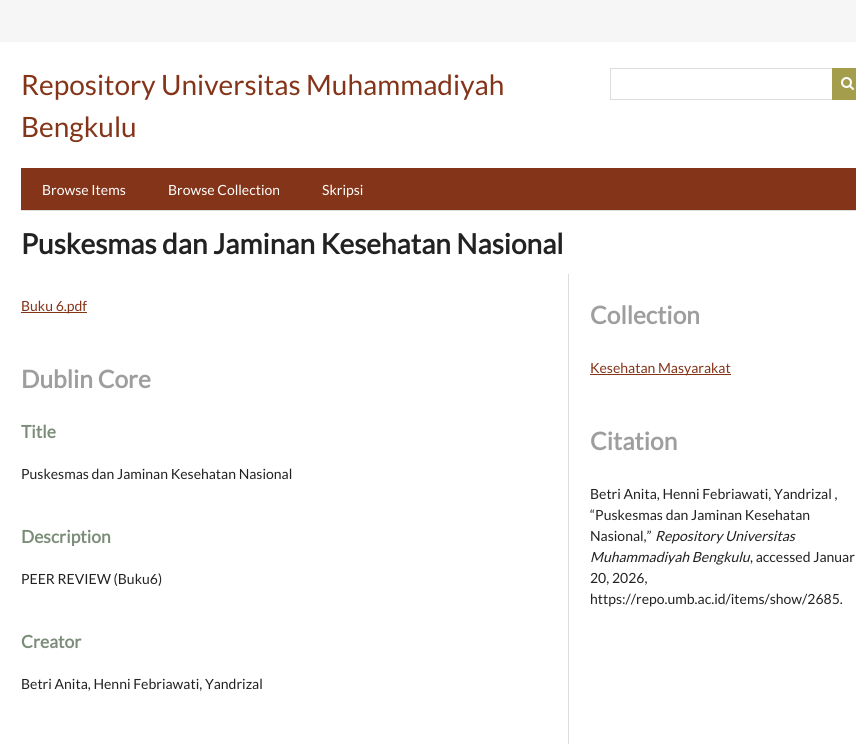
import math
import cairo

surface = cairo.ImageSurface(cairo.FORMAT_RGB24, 856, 744)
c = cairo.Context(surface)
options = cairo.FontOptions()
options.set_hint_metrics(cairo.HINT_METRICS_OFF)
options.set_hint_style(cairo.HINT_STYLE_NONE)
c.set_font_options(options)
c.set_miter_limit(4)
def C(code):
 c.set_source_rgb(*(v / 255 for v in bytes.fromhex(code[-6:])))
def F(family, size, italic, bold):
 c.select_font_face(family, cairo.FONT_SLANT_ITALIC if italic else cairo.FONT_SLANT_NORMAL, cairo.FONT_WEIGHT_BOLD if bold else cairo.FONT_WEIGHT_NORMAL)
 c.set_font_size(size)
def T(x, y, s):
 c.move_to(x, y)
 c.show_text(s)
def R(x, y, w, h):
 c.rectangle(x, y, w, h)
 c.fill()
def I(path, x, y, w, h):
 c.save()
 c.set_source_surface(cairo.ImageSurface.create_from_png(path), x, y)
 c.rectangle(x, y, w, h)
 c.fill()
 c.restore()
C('f6f6f6')
c.paint()
C('ffffff')
R(0,42,856,702)
F('Lato',28,0,0)
C('843418')
T(21,95,'Repository Universitas Muhammadiyah')
T(21,137,'Bengkulu')
c.rectangle(610.5,68.5,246,31)
C('dddddd')
c.set_line_width(1)
c.stroke()
C('a49d4c')
R(832,68,24,32)
I('1.png',841,77,13,13)
C('843418')
R(21,168,835,42)
F('Lato',14,0,0)
C('ffffff')
T(42,195,'Browse Items')
T(168,195,'Browse Collection')
T(322,195,'Skripsi')
C('dddddd')
R(21,210,835,1)
F('Lato',28,0,1)
C('222222')
T(21,254,'Puskesmas dan Jaminan Kesehatan Nasional')
C('843418')
R(21,312,66,1)
F('Lato',14,0,0)
T(21,311,'Buku 6.pdf')
C('dddddd')
R(568,274,1,470)
F('Lato',24.5,0,1)
C('9e9e9e')
T(21,388,'Dublin Core')
F('Lato',17.5,0,1)
C('7b8d78')
T(21,438,'Title')
F('Lato',14,0,0)
C('222222')
T(21,479,'Puskesmas dan Jaminan Kesehatan Nasional')
F('Lato',17.5,0,1)
C('7b8d78')
T(21,543,'Description')
F('Lato',14,0,0)
C('222222')
T(21,584,'PEER REVIEW (Buku6)')
F('Lato',17.5,0,1)
C('7b8d78')
T(21,648,'Creator')
F('Lato',14,0,0)
C('222222')
T(21,689,'Betri Anita, Henni Febriawati, Yandrizal')
F('Lato',24.5,0,1)
C('9e9e9e')
T(590,324,'Collection')
C('843418')
R(590,374,141,1)
F('Lato',14,0,0)
T(590,373,'Kesehatan Masyarakat')
F('Lato',24.5,0,1)
C('9e9e9e')
T(590,450,'Citation')
F('Lato',14,0,0)
C('222222')
T(590,499,'Betri Anita, Henni Febriawati, Yandrizal ,')
T(590,520,'“Puskesmas dan Jaminan Kesehatan')
T(590,541,'Nasional,”')
F('Lato',14,1,0)
T(655,541,'Repository Universitas')
T(590,562,'Muhammadiyah Bengkulu')
F('Lato',14,0,0)
T(750,562,', accessed Januar')
T(590,583,'20, 2026,')
T(590,604,'https://repo.umb.ac.id/items/show/2685.')
surface.write_to_png('o.png')
